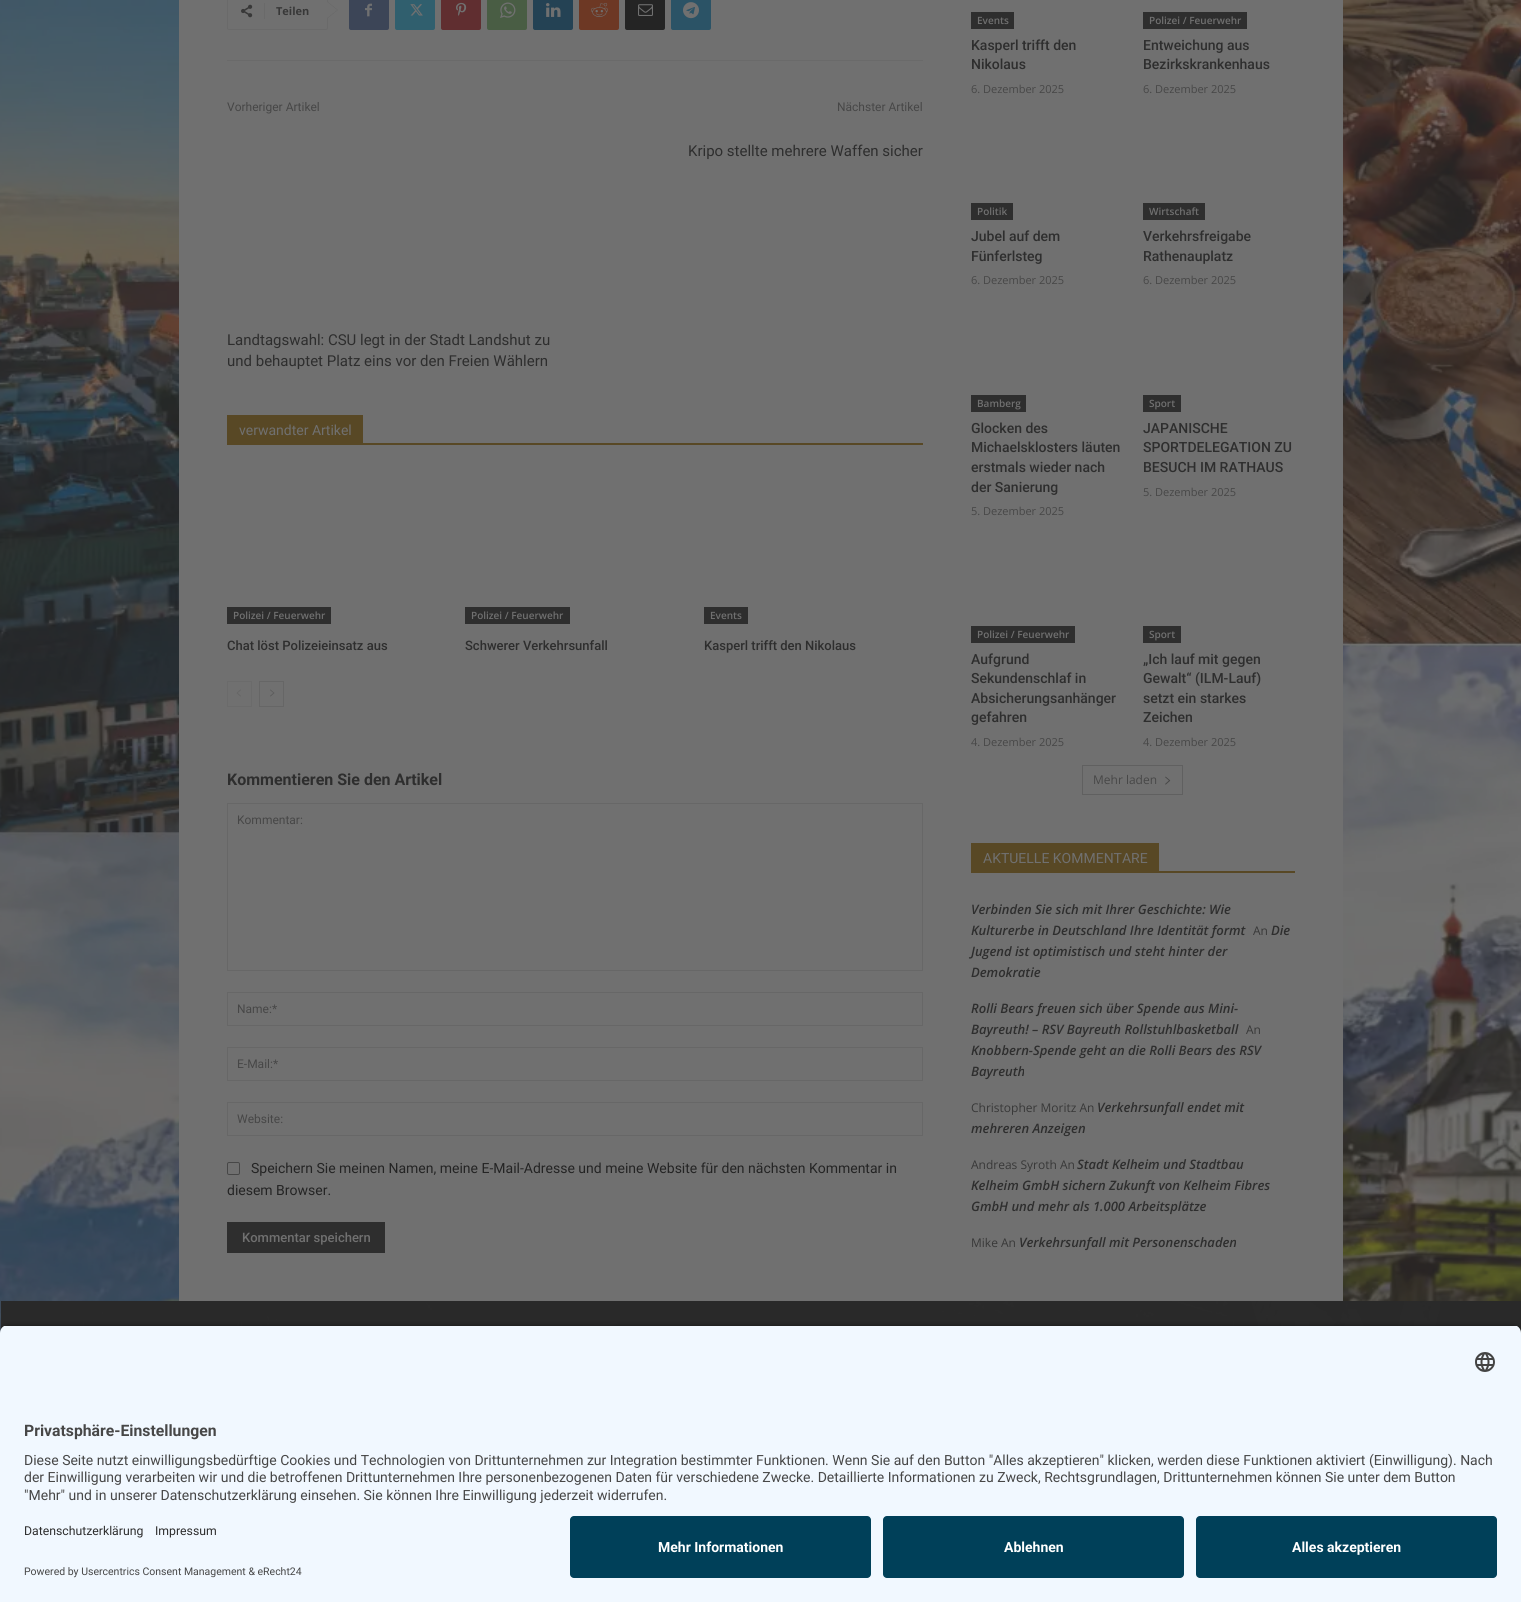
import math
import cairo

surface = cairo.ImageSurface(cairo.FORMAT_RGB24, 1521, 1602)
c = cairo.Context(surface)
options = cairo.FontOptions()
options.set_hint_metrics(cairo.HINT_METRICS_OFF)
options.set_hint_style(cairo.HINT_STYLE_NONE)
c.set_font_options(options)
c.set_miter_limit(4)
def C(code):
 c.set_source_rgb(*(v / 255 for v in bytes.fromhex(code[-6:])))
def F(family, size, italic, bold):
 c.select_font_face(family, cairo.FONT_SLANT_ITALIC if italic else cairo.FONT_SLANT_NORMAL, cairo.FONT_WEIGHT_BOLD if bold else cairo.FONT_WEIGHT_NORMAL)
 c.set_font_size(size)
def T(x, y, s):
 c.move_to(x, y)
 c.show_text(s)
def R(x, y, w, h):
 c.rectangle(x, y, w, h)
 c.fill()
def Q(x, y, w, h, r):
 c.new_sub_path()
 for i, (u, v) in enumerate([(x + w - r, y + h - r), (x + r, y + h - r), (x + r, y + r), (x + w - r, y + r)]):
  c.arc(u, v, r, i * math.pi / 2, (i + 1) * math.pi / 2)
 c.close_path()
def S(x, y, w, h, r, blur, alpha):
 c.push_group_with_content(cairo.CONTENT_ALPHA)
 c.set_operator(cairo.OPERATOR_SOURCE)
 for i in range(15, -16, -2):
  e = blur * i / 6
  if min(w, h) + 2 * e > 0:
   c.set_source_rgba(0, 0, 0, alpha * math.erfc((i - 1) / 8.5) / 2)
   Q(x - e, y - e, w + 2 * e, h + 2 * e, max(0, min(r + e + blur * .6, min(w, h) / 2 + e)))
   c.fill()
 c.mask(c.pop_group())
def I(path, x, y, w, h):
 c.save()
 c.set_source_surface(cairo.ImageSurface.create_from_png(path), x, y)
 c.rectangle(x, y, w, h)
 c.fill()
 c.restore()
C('ffffff')
c.paint()
I('1.png',0,0,1521,1333)
C('707070')
R(179,0,1164,1301)
Q(227.5,-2.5,100,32,1.5)
C('6a6a6a')
c.set_line_width(1)
c.stroke()
c.new_path()
c.move_to(327,19)
c.line_to(327,1)
c.line_to(338,10)
c.close_path()
c.fill()
I('2.png',241,4,12,14)
R(264,3,1,16)
F('Open Sans',11,0,1)
C('383838')
T(276,15,'Teilen')
C('707070')
c.new_path()
c.move_to(327,18)
c.line_to(327,2)
c.line_to(337,10)
c.close_path()
c.fill()
C('3c4557')
Q(349,-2,40,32,2)
c.fill()
I('3.png',365,3,7,14)
C('305f6e')
Q(395,-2,40,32,2)
c.fill()
I('4.png',410,4,13,12)
C('602e30')
Q(441,-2,40,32,2)
c.fill()
I('5.png',456,2,11,14)
C('495d44')
Q(487,-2,40,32,2)
c.fill()
I('6.png',500,2,16,16)
C('244254')
Q(533,-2,40,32,2)
c.fill()
I('7.png',546,3,15,14)
C('6d3824')
Q(579,-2,40,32,2)
c.fill()
I('8.png',591,3,17,14)
C('242424')
Q(625,-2,40,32,2)
c.fill()
I('9.png',638,4,15,12)
C('2b5366')
Q(671,-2,40,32,2)
c.fill()
I('10.png',683,2,16,17)
C('6a6a6a')
R(227,60,696,1)
F('Roboto',12,0,0)
C('474747')
T(227,111,'Vorheriger Artikel')
F('Roboto',15,0,0)
C('2e2e2e')
T(227,345,'Landtagswahl: CSU legt in der Stadt Landshut zu')
T(227,366,'und behauptet Platz eins vor den Freien Wählern')
F('Roboto',12,0,0)
C('474747')
T(837,111,'Nächster Artikel')
F('Roboto',15,0,0)
C('2e2e2e')
T(688,156,'Kripo stellte mehrere Waffen sicher')
C('584825')
R(227,443,696,2)
R(227,415,136,28)
F('Roboto',14,0,0)
C('707070')
T(239,435,'verwandter Artikel')
C('2e2e2e')
R(227,607,104,17)
F('Open Sans SemiBold',10,0,0)
C('707070')
T(233,619,'Polizei / Feuerwehr')
F('Roboto Medium',13,0,0)
C('2e2e2e')
T(227,650,'Chat löst Polizeieinsatz aus')
R(465,607,105,17)
F('Open Sans SemiBold',10,0,0)
C('707070')
T(471,619,'Polizei / Feuerwehr')
F('Roboto Medium',13,0,0)
C('2e2e2e')
T(465,650,'Schwerer Verkehrsunfall')
R(704,607,44,17)
F('Open Sans SemiBold',10,0,0)
C('707070')
T(710,619,'Events')
F('Roboto Medium',13,0,0)
C('2e2e2e')
T(704,650,'Kasperl trifft den Nikolaus')
c.rectangle(227.5,681.5,24,25)
C('6b6b6b')
c.stroke()
I('11.png',236,689,5,8)
c.rectangle(259.5,681.5,24,25)
C('666666')
c.stroke()
I('12.png',270,689,5,8)
F('Roboto',16,0,1)
C('2e2e2e')
T(227,785,'Kommentieren Sie den Artikel')
c.rectangle(227.5,803.5,695,167)
C('676767')
c.stroke()
F('Roboto',12,0,0)
C('474747')
T(237,824,'Kommentar:')
c.rectangle(227.5,992.5,695,33)
C('676767')
c.stroke()
C('474747')
T(237,1013,'Name:*')
c.rectangle(227.5,1047.5,695,33)
C('676767')
c.stroke()
C('474747')
T(237,1068,'E-Mail:*')
c.rectangle(227.5,1102.5,695,33)
C('676767')
c.stroke()
C('474747')
T(237,1123,'Website:')
Q(227.5,1162.5,12,12,1.5)
c.stroke()
F('Roboto',14,0,0)
C('242424')
T(251,1173,'Speichern Sie meinen Namen, meine E-Mail-Adresse und meine Website für den nächsten Kommentar in')
T(227,1195,'diesem Browser.')
C('2e2e2e')
R(227,1222,158,31)
F('Roboto Medium',13,0,0)
C('707070')
T(242,1242,'Kommentar speichern')
C('2e2e2e')
R(971,12,43,17)
F('Open Sans SemiBold',10,0,0)
C('707070')
T(977,24,'Events')
F('Roboto Medium',14,0,0)
C('2e2e2e')
T(971,50,'Kasperl trifft den')
T(971,69,'Nikolaus')
F('Open Sans',11,0,0)
C('474747')
T(971,93,'6. Dezember 2025')
C('2e2e2e')
R(1143,12,104,17)
F('Open Sans SemiBold',10,0,0)
C('707070')
T(1149,24,'Polizei / Feuerwehr')
F('Roboto Medium',14,0,0)
C('2e2e2e')
T(1143,50,'Entweichung aus')
T(1143,69,'Bezirkskrankenhaus')
F('Open Sans',11,0,0)
C('474747')
T(1143,93,'6. Dezember 2025')
C('2e2e2e')
R(971,203,42,17)
F('Open Sans SemiBold',10,0,0)
C('707070')
T(977,215,'Politik')
F('Roboto Medium',14,0,0)
C('2e2e2e')
T(971,241,'Jubel auf dem')
T(971,261,'Fünferlsteg')
F('Open Sans',11,0,0)
C('474747')
T(971,284,'6. Dezember 2025')
C('2e2e2e')
R(1143,203,62,17)
F('Open Sans SemiBold',10,0,0)
C('707070')
T(1149,215,'Wirtschaft')
F('Roboto Medium',14,0,0)
C('2e2e2e')
T(1143,241,'Verkehrsfreigabe')
T(1143,261,'Rathenauplatz')
F('Open Sans',11,0,0)
C('474747')
T(1143,284,'6. Dezember 2025')
C('2e2e2e')
R(971,395,55,17)
F('Open Sans SemiBold',10,0,0)
C('707070')
T(977,407,'Bamberg')
F('Roboto Medium',14,0,0)
C('2e2e2e')
T(971,433,'Glocken des')
T(971,452,'Michaelsklosters läuten')
T(971,472,'erstmals wieder nach')
T(971,492,'der Sanierung')
F('Open Sans',11,0,0)
C('474747')
T(971,515,'5. Dezember 2025')
C('2e2e2e')
R(1143,395,38,17)
F('Open Sans SemiBold',10,0,0)
C('707070')
T(1149,407,'Sport')
F('Roboto Medium',14,0,0)
C('2e2e2e')
T(1143,433,'JAPANISCHE')
T(1143,452,'SPORTDELEGATION ZU')
T(1143,472,'BESUCH IM RATHAUS')
F('Open Sans',11,0,0)
C('474747')
T(1143,496,'5. Dezember 2025')
C('2e2e2e')
R(971,626,104,17)
F('Open Sans SemiBold',10,0,0)
C('707070')
T(977,638,'Polizei / Feuerwehr')
F('Roboto Medium',14,0,0)
C('2e2e2e')
T(971,664,'Aufgrund')
T(971,683,'Sekundenschlaf in')
T(971,703,'Absicherungsanhänger')
T(971,722,'gefahren')
F('Open Sans',11,0,0)
C('474747')
T(971,746,'4. Dezember 2025')
C('2e2e2e')
R(1143,626,38,17)
F('Open Sans SemiBold',10,0,0)
C('707070')
T(1149,638,'Sport')
F('Roboto Medium',14,0,0)
C('2e2e2e')
T(1143,664,'„Ich lauf mit gegen')
T(1143,683,'Gewalt“ (ILM-Lauf)')
T(1143,703,'setzt ein starkes')
T(1143,722,'Zeichen')
F('Open Sans',11,0,0)
C('474747')
T(1143,746,'4. Dezember 2025')
c.rectangle(1082.5,765.5,100,29)
C('606060')
c.stroke()
F('Open Sans',12,0,0)
C('474747')
T(1093,784,'Mehr laden')
I('13.png',1165,776,6,9)
C('584825')
R(971,871,324,2)
R(971,843,188,28)
F('Roboto',14,0,0)
C('707070')
T(983,863,'AKTUELLE KOMMENTARE')
F('Open Sans SemiBold',13,1,0)
C('2e2e2e')
T(971,914,'Verbinden Sie sich mit Ihrer Geschichte: Wie')
T(971,935,'Kulturerbe in Deutschland Ihre Identität formt')
F('Open Sans',12,0,0)
C('383838')
T(1253,935,'An')
F('Open Sans SemiBold',13,1,0)
C('2e2e2e')
T(1271,935,'Die')
T(971,956,'Jugend ist optimistisch und steht hinter der')
T(971,977,'Demokratie')
T(971,1013,'Rolli Bears freuen sich über Spende aus Mini-')
T(971,1034,'Bayreuth! – RSV Bayreuth Rollstuhlbasketball')
F('Open Sans',12,0,0)
C('383838')
T(1246,1034,'An')
F('Open Sans SemiBold',13,1,0)
C('2e2e2e')
T(971,1055,'Knobbern-Spende geht an die Rolli Bears des RSV')
T(971,1076,'Bayreuth')
F('Open Sans',12,0,0)
C('383838')
T(971,1112,'Christopher Moritz An')
F('Open Sans SemiBold',13,1,0)
C('2e2e2e')
T(1097,1112,'Verkehrsunfall endet mit')
T(971,1133,'mehreren Anzeigen')
F('Open Sans',12,0,0)
C('383838')
T(971,1169,'Andreas Syroth An')
F('Open Sans SemiBold',13,1,0)
C('2e2e2e')
T(1077,1169,'Stadt Kelheim und Stadtbau')
T(971,1190,'Kelheim GmbH sichern Zukunft von Kelheim Fibres')
T(971,1211,'GmbH und mehr als 1.000 Arbeitsplätze')
F('Open Sans',12,0,0)
C('383838')
T(971,1247,'Mike An')
F('Open Sans SemiBold',13,1,0)
C('2e2e2e')
T(1019,1247,'Verkehrsunfall mit Personenschaden')
C('292929')
R(1,1301,1520,32)
I('14.png',0,1301,1472,32)
C('000000')
S(0,1328,1521,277,8,3.5,.8)
c.save()
c.new_path()
c.move_to(8,1325)
c.line_to(1513,1325)
c.curve_to(1517.5,1325,1521,1328.5,1521,1333)
c.line_to(1521,1508)
c.line_to(0,1508)
c.line_to(0,1333)
c.curve_to(0,1328.5,3.5,1325,8,1325)
c.close_path()
c.clip()
C('f1f8ff')
R(0,1326,1521,182)
c.restore()
I('15.png',1475,1352,20,20)
F('Roboto',15.75,0,1)
C('474747')
T(24,1436,'Privatsphäre-Einstellungen')
F('Roboto',14,0,0)
T(24,1465,'Diese Seite nutzt einwilligungsbedürftige Cookies und Technologien von Drittunternehmen zur Integration bestimmter Funktionen. Wenn Sie auf den Button "Alles akzeptieren" klicken, werden diese Funktionen aktiviert (Einwilligung). Nach')
T(24,1482,'der Einwilligung verarbeiten wir und die betroffenen Drittunternehmen Ihre personenbezogenen Daten für verschiedene Zwecke. Detaillierte Informationen zu Zweck, Rechtsgrundlagen, Drittunternehmen können Sie unter dem Button')
T(24,1500,'"Mehr" und in unserer Datenschutzerklärung einsehen. Sie können Ihre Einwilligung jederzeit widerrufen.')
C('f1f8ff')
R(0,1508,1521,94)
F('Roboto',12.25,0,0)
C('2e2e2e')
T(24,1535,'Datenschutzerklärung')
T(155,1535,'Impressum')
F('Roboto',10.5,0,0)
C('474747')
T(24,1575,'Powered by Usercentrics Consent Management & eRecht24')
C('004059')
Q(570,1516,301,62,4)
c.fill()
F('Roboto',14,0,1)
C('ffffff')
T(658,1552,'Mehr Informationen')
C('004059')
Q(883,1516,301,62,4)
c.fill()
C('ffffff')
T(1004,1552,'Ablehnen')
C('004059')
Q(1196,1516,301,62,4)
c.fill()
C('ffffff')
T(1292,1552,'Alles akzeptieren')
surface.write_to_png('o.png')
